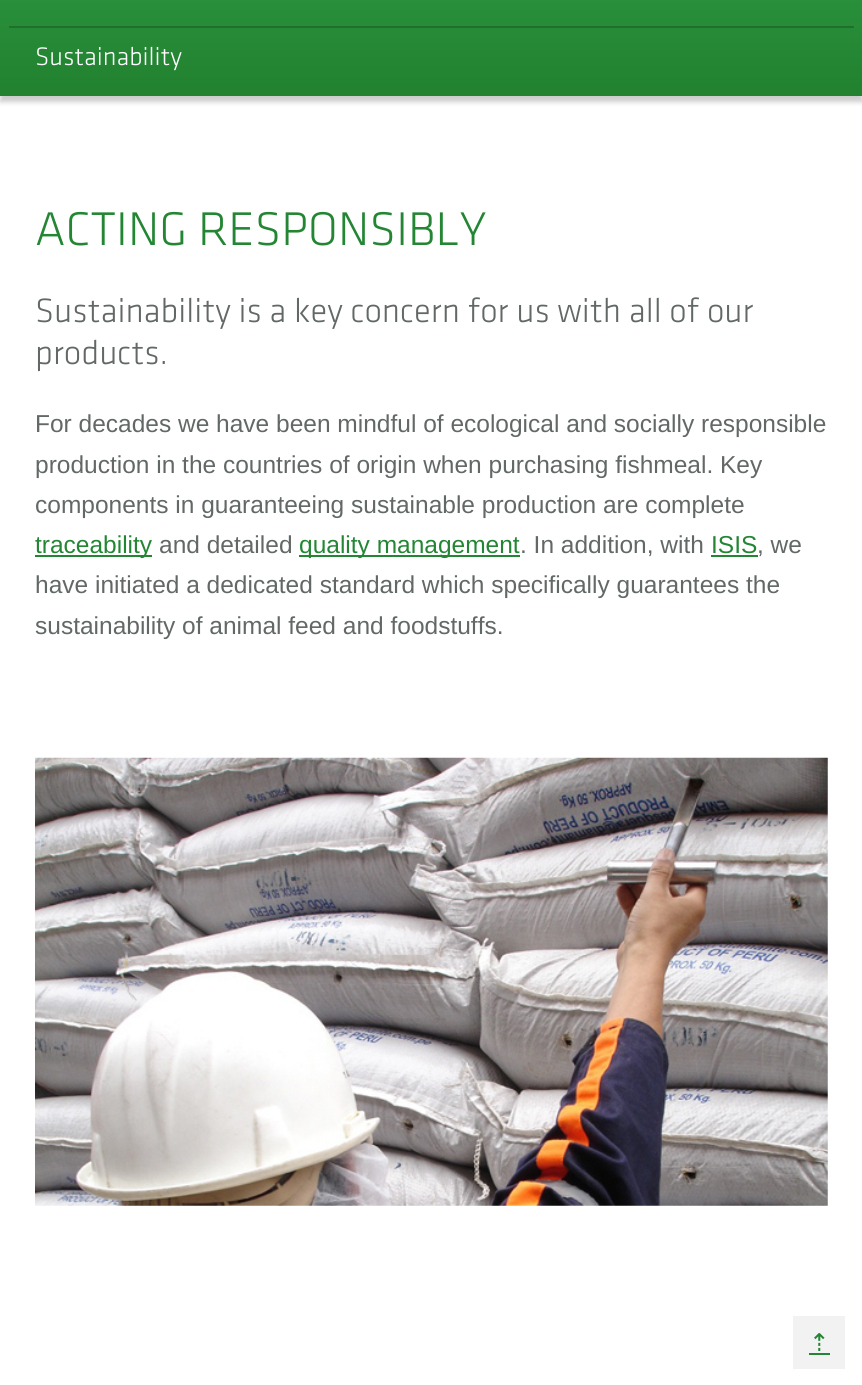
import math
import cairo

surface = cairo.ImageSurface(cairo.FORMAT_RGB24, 862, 1385)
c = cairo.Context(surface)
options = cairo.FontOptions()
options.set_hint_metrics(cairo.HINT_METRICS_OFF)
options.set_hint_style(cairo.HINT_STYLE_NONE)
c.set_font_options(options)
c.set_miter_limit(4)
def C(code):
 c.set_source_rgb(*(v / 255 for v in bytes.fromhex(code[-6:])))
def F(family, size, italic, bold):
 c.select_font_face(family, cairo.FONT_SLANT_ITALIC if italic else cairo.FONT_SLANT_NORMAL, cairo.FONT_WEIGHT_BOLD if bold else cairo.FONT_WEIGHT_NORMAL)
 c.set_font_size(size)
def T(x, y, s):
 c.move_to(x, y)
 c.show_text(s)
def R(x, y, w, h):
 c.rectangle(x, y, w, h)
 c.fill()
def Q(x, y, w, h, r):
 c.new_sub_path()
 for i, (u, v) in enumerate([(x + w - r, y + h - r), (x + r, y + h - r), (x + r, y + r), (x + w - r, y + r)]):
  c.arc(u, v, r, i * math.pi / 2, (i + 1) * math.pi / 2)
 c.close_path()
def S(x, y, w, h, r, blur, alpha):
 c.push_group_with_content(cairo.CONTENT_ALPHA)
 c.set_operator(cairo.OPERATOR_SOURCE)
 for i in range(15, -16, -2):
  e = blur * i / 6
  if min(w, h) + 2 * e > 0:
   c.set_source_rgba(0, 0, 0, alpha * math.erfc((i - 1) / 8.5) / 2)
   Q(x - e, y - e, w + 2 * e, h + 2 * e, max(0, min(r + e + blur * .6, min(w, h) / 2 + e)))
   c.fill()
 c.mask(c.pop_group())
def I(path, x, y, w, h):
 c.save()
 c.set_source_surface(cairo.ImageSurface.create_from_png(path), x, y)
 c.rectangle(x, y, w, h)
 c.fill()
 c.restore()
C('ffffff')
c.paint()
C('000000')
S(0,-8,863,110,0,2.5,.2)
gradient = cairo.LinearGradient(431,-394,431,96)
gradient.add_color_stop_rgba(0,0.2,0.616,0.306,1)
gradient.add_color_stop_rgba(.41,0.2,0.616,0.306,1)
gradient.add_color_stop_rgba(.71,0.173,0.588,0.255,1)
gradient.add_color_stop_rgba(.98,0.133,0.51,0.188,1)
c.set_source(gradient)
R(0,0,862,96)
C('1f6f2d')
R(9,26,845,2)
F('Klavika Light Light',26.25,0,0)
C('ffffff')
T(35,65,'Sustainability')
F('Klavika Light Light',49,0,0)
C('248634')
T(35,245,'ACTING RESPONSIBLY')
F('Klavika Light Light',35,0,0)
C('626866')
T(35,322,'Sustainability is a key concern for us with all of our')
T(35,364,'products.')
F('Liberation Sans',24.5,0,0)
T(35,432,'For decades we have been mindful of ecological and socially responsible')
T(35,473,'production in the countries of origin when purchasing fishmeal. Key')
T(35,513,'components in guaranteeing sustainable production are complete')
C('248634')
R(35,555,117,2)
T(35,553,'traceability')
C('626866')
T(159,553,'and detailed')
C('248634')
R(299,555,221,2)
T(299,553,'quality management')
C('626866')
T(520,553,'. In addition, with')
C('248634')
T(711,553,'ISIS')
R(711,555,47,2)
C('626866')
T(757,553,', we')
T(35,593,'have initiated a dedicated standard which specifically guarantees the')
T(35,634,'sustainability of animal feed and foodstuffs.')
I('1.png',35,757,793,449)
C('f2f2f2')
R(793,1316,52,53)
F('DejaVu Sans',24.5,0,0)
C('248634')
T(809,1351,'⇡')
R(809,1353,21,2)
surface.write_to_png('o.png')
